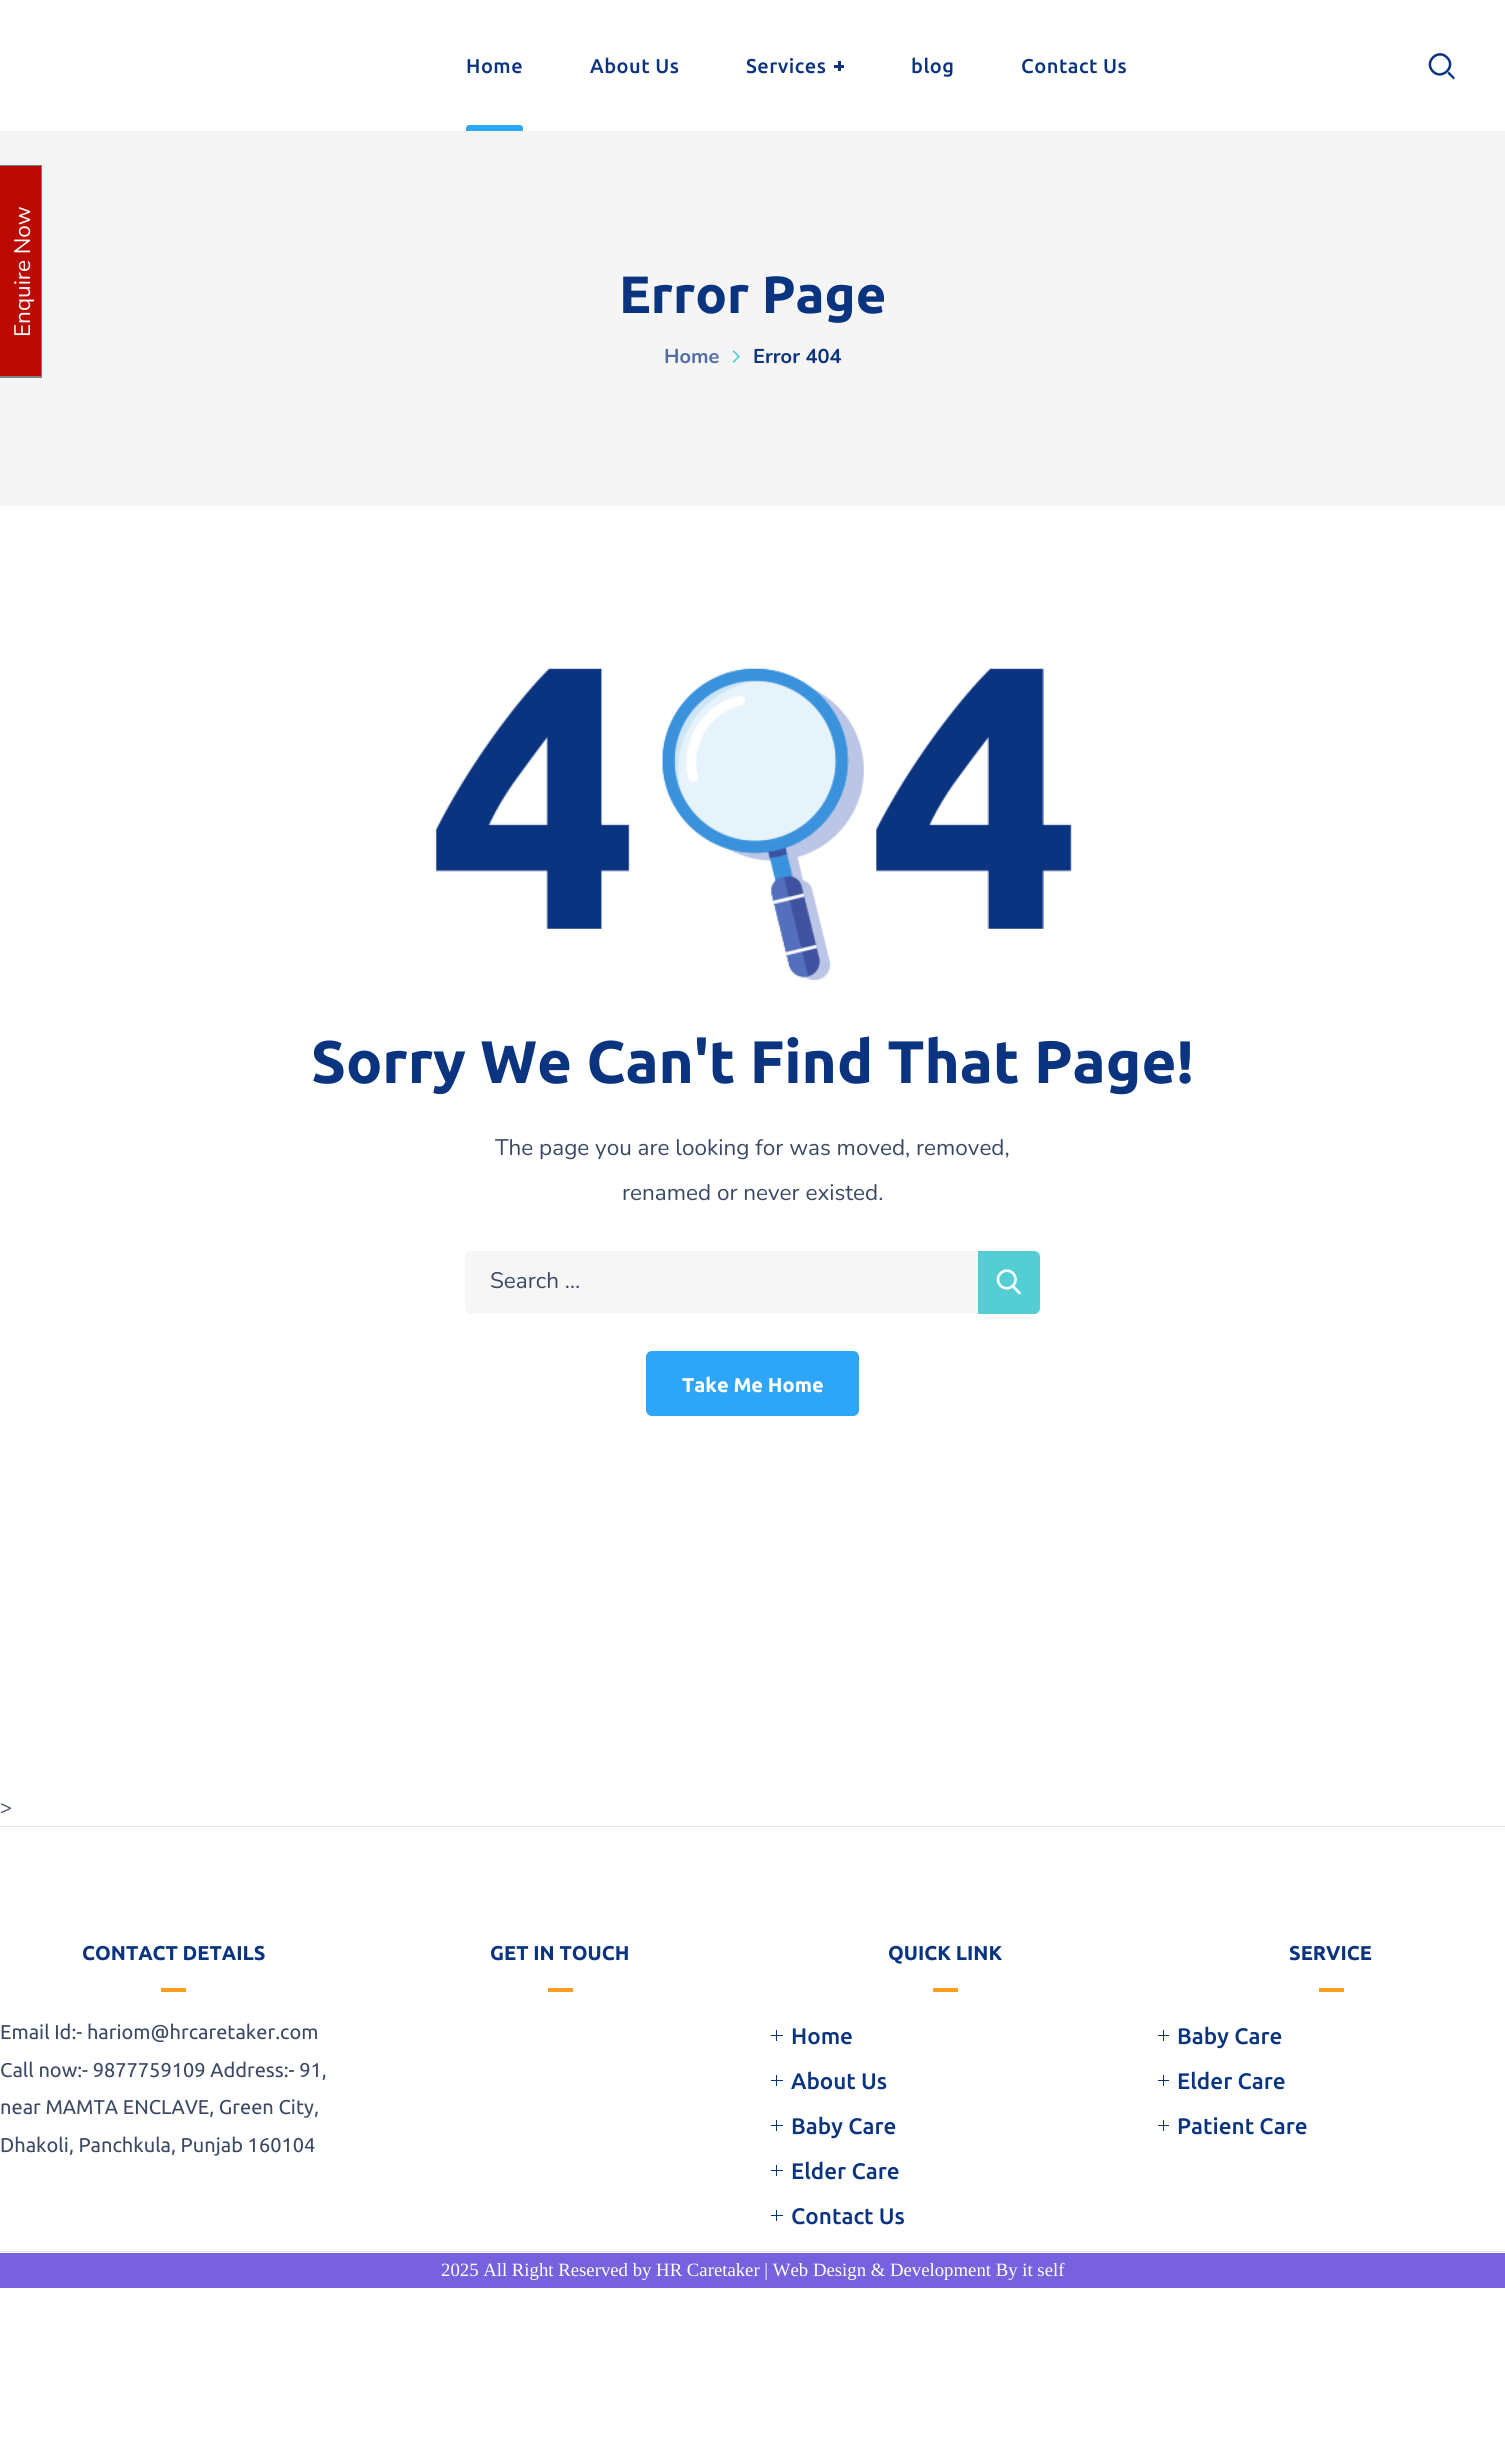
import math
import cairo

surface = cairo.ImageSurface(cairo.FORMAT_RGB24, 1505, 2464)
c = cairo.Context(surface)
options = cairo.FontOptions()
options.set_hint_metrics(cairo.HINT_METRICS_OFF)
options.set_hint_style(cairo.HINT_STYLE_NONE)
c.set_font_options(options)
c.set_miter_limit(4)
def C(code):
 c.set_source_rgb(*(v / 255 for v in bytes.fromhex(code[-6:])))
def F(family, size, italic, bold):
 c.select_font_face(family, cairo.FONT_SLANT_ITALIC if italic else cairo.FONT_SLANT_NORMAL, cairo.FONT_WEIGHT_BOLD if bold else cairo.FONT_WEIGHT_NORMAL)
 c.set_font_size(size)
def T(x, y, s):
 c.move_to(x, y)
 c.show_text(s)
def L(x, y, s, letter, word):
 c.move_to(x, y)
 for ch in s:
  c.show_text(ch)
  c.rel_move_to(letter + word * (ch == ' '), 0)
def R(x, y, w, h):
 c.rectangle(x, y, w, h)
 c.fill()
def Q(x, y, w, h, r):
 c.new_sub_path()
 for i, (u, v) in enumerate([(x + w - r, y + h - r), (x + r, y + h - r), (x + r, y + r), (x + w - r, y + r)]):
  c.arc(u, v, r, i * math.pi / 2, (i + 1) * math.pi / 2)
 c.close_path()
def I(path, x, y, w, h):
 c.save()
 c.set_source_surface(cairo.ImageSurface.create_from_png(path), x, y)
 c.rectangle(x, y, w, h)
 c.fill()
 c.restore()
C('ffffff')
c.paint()
F('Ubuntu Medium',20,0,0)
C('0a3380')
L(466,73,'Home',.5,0)
L(590,73,'About Us',.5,0)
L(746,73,'Services',.5,0)
R(834,65,10,3)
R(838,61,3,10)
L(911,73,'blog',.5,0)
L(1021,73,'Contact Us',.5,0)
C('2ea6f7')
c.new_path()
c.move_to(469,125)
c.line_to(520,125)
c.curve_to(521.5,125,523,126.5,523,128)
c.line_to(523,131)
c.line_to(466,131)
c.line_to(466,128)
c.curve_to(466,126.5,467.5,125,469,125)
c.close_path()
c.fill()
c.new_path()
c.move_to(1447,57.5)
c.curve_to(1456.5,66.5,1442,80.5,1433,71.5)
c.curve_to(1423.5,62,1438,48,1447,57.5)
c.close_path()
C('0a3380')
c.set_line_width(2.5)
c.stroke()
c.new_path()
c.move_to(1447.5,73.5)
c.line_to(1449,71.5)
c.line_to(1455,78)
c.line_to(1453.5,79.5)
c.close_path()
c.fill()
C('f5f5f5')
R(0,131,1505,375)
C('ba0a03')
R(0,166,41,210)
C('7f7f7f')
R(0,165,42,1)
R(41,165,1,213)
R(0,376,42,2)
F('Nunito',22.5,0,0)
C('ffffff')
c.save()
c.translate(30,337)
c.rotate(-90 * math.pi / 180)
T(0,0,'Enquire Now')
c.restore()
F('Ubuntu',52.5,0,1)
C('0a3380')
T(619,313,'Error Page')
F('Nunito',20,0,1)
C('516da3')
T(664,363,'Home')
I('1.png',732,350,8,13)
C('0a3380')
T(753,363,'Error 404')
I('2.png',435,668,637,312)
F('Ubuntu',60,0,1)
T(311,1083,'Sorry We Can\'t Find That Page!')
F('Nunito',22.5,0,0)
C('3b4964')
T(495,1155,'The page you are looking for was moved, removed,')
T(622,1200,'renamed or never existed.')
C('f6f6f6')
Q(465,1251,575,63,6)
c.fill()
C('3b4964')
T(490,1288,'Search …')
C('54ced4')
c.new_path()
c.move_to(978,1251)
c.line_to(1034,1251)
c.curve_to(1037.5,1251,1040,1253.5,1040,1257)
c.line_to(1040,1308)
c.curve_to(1040,1311.5,1037.5,1314,1034,1314)
c.line_to(978,1314)
c.close_path()
c.fill()
I('3.png',996,1269,25,26)
C('2ea6f7')
Q(646.5,1351.5,212,64,5.5)
c.fill_preserve()
c.set_line_width(1)
c.stroke()
F('Ubuntu',20,0,1)
C('ffffff')
T(682,1392,'Take Me Home')
F('Nunito',20,0,0)
C('3b4964')
T(0,1814,'>')
C('e5e5e5')
R(0,1826,1505,1)
C('e2e7f1')
R(0,2251,1505,1)
F('Ubuntu',20,0,1)
C('0a3380')
T(82,1960,'CONTACT DETAILS')
C('ff9e21')
R(161,1988,25,4)
F('Ubuntu',20,0,0)
C('3b4964')
T(0,2039,'Email Id:- hariom@hrcaretaker.com')
T(0,2077,'Call now:- 9877759109 Address:- 91,')
T(0,2114,'near MAMTA ENCLAVE, Green City,')
T(0,2152,'Dhakoli, Panchkula, Punjab 160104')
F('Ubuntu',20,0,1)
C('0a3380')
T(490,1960,'GET IN TOUCH')
C('ff9e21')
R(548,1988,25,4)
C('0a3380')
T(888,1960,'QUICK LINK')
C('ff9e21')
R(933,1988,25,4)
C('0a3380')
R(771,2035,12,1)
R(776,2030,1,11)
F('Ubuntu Medium',22.5,0,0)
T(791,2044,'Home')
R(771,2080,12,1)
R(776,2075,1,11)
T(791,2089,'About Us')
R(771,2125,12,1)
R(776,2120,1,11)
T(791,2134,'Baby Care')
R(771,2170,12,1)
R(776,2165,1,11)
T(791,2179,'Elder Care')
R(771,2215,12,1)
R(776,2210,1,11)
T(791,2224,'Contact Us')
F('Ubuntu',20,0,1)
T(1289,1960,'SERVICE')
C('ff9e21')
R(1319,1988,25,4)
C('0a3380')
R(1158,2035,11,1)
R(1163,2030,1,11)
F('Ubuntu Medium',22.5,0,0)
T(1177,2044,'Baby Care')
R(1158,2080,11,1)
R(1163,2075,1,11)
T(1177,2089,'Elder Care')
R(1158,2125,11,1)
R(1163,2120,1,11)
T(1177,2134,'Patient Care')
C('7761df')
R(0,2253,1505,35)
F('Liberation Serif',18.75,0,0)
C('ffffff')
T(441,2276,'2025 All Right Reserved by HR Caretaker | Web Design & Development By it self')
surface.write_to_png('o.png')
